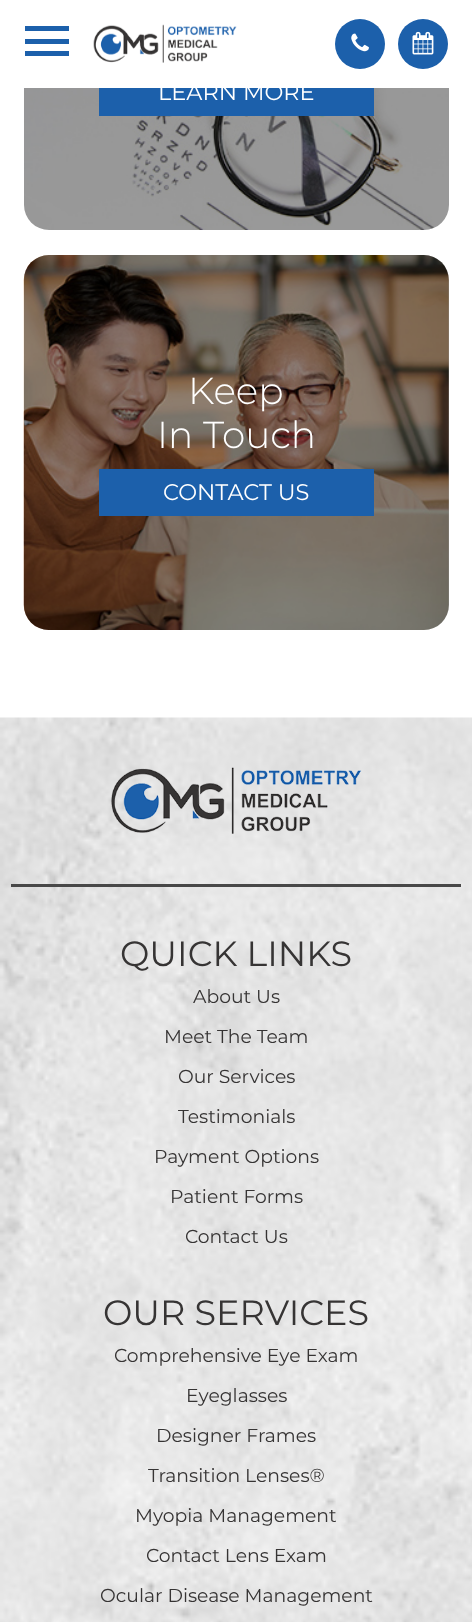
<svg xmlns="http://www.w3.org/2000/svg" width="472" height="1622" viewBox="0 0 472 1622">
  <rect width="100%" height="100%" fill="rgb(255,255,255)"/>
  <image x="23" y="88" width="426" height="142" href="pic4.png"/>
  <rect x="24" y="-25" width="425" height="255" rx="25" fill="rgba(0,0,0,0.4)"/>
  <rect x="24" y="0" width="425" height="88" fill="rgb(255,255,255)"/>
  <rect x="25" y="51" width="44" height="5" fill="rgb(28,96,171)"/>
  <rect x="25" y="26" width="44" height="5" fill="rgb(28,96,171)"/>
  <rect x="25" y="39" width="44" height="5" fill="rgb(28,96,171)"/>
  <image x="93" y="24" width="144" height="39" href="pic1.png"/>
  <circle cx="360" cy="44" r="25" fill="rgb(28,96,171)"/>
  <image x="351" y="33" width="18" height="19" href="pic2.png"/>
  <circle cx="423" cy="44" r="25" fill="rgb(28,96,171)"/>
  <image x="412" y="31" width="22" height="24" href="pic3.png"/>
  <rect x="99" y="88" width="275" height="28" fill="rgb(28,96,171)"/>
  <text x="158" y="100" font-family="Montserrat" font-size="22.5" fill="rgb(255,255,255)">LEARN MORE</text>
  <image x="23" y="255" width="426" height="375" href="pic5.png"/>
  <rect x="24" y="255" width="425" height="375" rx="25" fill="rgba(0,0,0,0.4)"/>
  <g font-family="Montserrat" font-size="37.5" font-weight="300" fill="rgb(255,255,255)">
    <text x="188" y="404">Keep</text>
    <text x="157" y="448">In Touch</text>
  </g>
  <rect x="99" y="469" width="275" height="47" fill="rgb(28,96,171)"/>
  <text x="163" y="500" font-family="Montserrat" font-size="22.5" fill="rgb(255,255,255)">CONTACT US</text>
  <image x="0" y="717" width="472" height="905" href="pic6.png"/>
  <image x="111" y="767" width="251" height="67" href="pic7.png"/>
  <rect x="11" y="884" width="450" height="3" fill="rgb(72,72,72)"/>
  <text x="120" y="966" font-family="Montserrat" font-size="35" fill="rgb(54,52,52)">QUICK LINKS</text>
  <g font-family="Montserrat" font-size="18.75" fill="rgb(54,52,52)">
    <text x="193" y="1003">About Us</text>
    <text x="164" y="1043">Meet The Team</text>
    <text x="178" y="1083">Our Services</text>
    <text x="178" y="1123">Testimonials</text>
    <text x="154" y="1163">Payment Options</text>
    <text x="170" y="1203">Patient Forms</text>
    <text x="185" y="1243">Contact Us</text>
  </g>
  <text x="103" y="1325" font-family="Montserrat" font-size="35" fill="rgb(54,52,52)">OUR SERVICES</text>
  <g font-family="Montserrat" font-size="18.75" fill="rgb(54,52,52)">
    <text x="114" y="1362">Comprehensive Eye Exam</text>
    <text x="186" y="1402">Eyeglasses</text>
    <text x="156" y="1442">Designer Frames</text>
    <text x="148" y="1482">Transition Lenses®</text>
    <text x="135" y="1522">Myopia Management</text>
    <text x="146" y="1562">Contact Lens Exam</text>
    <text x="100" y="1602">Ocular Disease Management</text>
  </g>
</svg>
